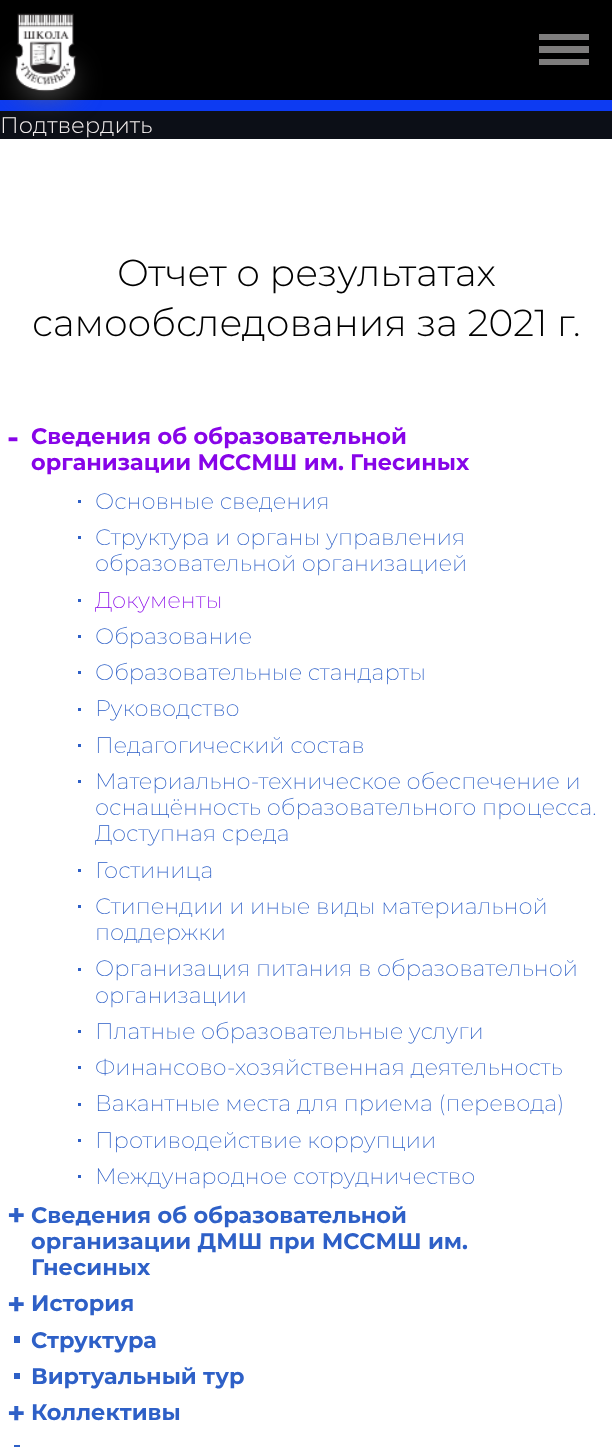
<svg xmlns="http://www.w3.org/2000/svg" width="612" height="1447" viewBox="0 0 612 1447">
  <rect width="100%" height="100%" fill="rgb(255,255,255)"/>
  <rect x="0" y="0" width="612" height="100" fill="rgb(0,0,0)"/>
  <rect x="539" y="34" width="50" height="6" fill="rgb(126,125,125)"/>
  <rect x="539" y="46" width="50" height="7" fill="rgb(126,125,125)"/>
  <rect x="539" y="59" width="50" height="6" fill="rgb(126,125,125)"/>
  <rect x="0" y="100" width="612" height="11" fill="rgb(13,59,242)"/>
  <rect x="0" y="111" width="612" height="28" fill="rgb(12,15,23)"/>
  <rect x="20" y="68" width="53" height="25" rx="25" fill="rgb(107,107,107)" filter="blur(15.5px)"/>
  <image x="15" y="13" width="62" height="79" href="pic1.png"/>
  <text x="0" y="133" font-family="Montserrat" font-size="22.5" font-weight="300" fill="rgb(242,237,237)">Подтвердить</text>
  <g font-family="Montserrat" font-size="37.5" font-weight="300" fill="rgb(0,0,0)">
    <text x="117" y="286">Отчет о результатах</text>
    <text x="32" y="336">самообследования за 2021 г.</text>
  </g>
  <text x="7" y="448" font-family="Montserrat" font-size="31" font-weight="bold" fill="rgb(135,4,232)">-</text>
  <g font-family="Montserrat" font-size="22.4" font-weight="bold" fill="rgb(135,4,232)">
    <text>
      <tspan x="31" y="444">Сведения об образовательной</tspan>
      <tspan x="31" y="470">организации МССМШ им. Гнесиных</tspan>
    </text>
  </g>
  <rect x="78" y="500" width="3" height="3" fill="rgb(46,96,199)"/>
  <text x="95" y="509" font-family="Montserrat" font-size="22.4" font-weight="200" fill="rgb(46,96,199)">Основные сведения</text>
  <rect x="78" y="536" width="3" height="3" fill="rgb(46,96,199)"/>
  <g font-family="Montserrat" font-size="22.4" font-weight="200" fill="rgb(46,96,199)">
    <text>
      <tspan x="95" y="545">Структура и органы управления</tspan>
      <tspan x="95" y="571">образовательной организацией</tspan>
    </text>
  </g>
  <rect x="78" y="599" width="3" height="3" fill="rgb(46,96,199)"/>
  <text x="95" y="608" font-family="Montserrat" font-size="22.4" font-weight="200" fill="rgb(135,4,232)">Документы</text>
  <rect x="78" y="635" width="3" height="3" fill="rgb(46,96,199)"/>
  <text x="95" y="644" font-family="Montserrat" font-size="22.4" font-weight="200" fill="rgb(46,96,199)">Образование</text>
  <rect x="78" y="671" width="3" height="3" fill="rgb(46,96,199)"/>
  <text x="95" y="680" font-family="Montserrat" font-size="22.4" font-weight="200" fill="rgb(46,96,199)">Образовательные стандарты</text>
  <rect x="78" y="708" width="3" height="3" fill="rgb(46,96,199)"/>
  <text x="95" y="716" font-family="Montserrat" font-size="22.4" font-weight="200" fill="rgb(46,96,199)">Руководство</text>
  <rect x="78" y="744" width="3" height="3" fill="rgb(46,96,199)"/>
  <text x="95" y="753" font-family="Montserrat" font-size="22.4" font-weight="200" fill="rgb(46,96,199)">Педагогический состав</text>
  <rect x="78" y="780" width="3" height="3" fill="rgb(46,96,199)"/>
  <g font-family="Montserrat" font-size="22.4" font-weight="200" fill="rgb(46,96,199)">
    <text>
      <tspan x="95" y="789">Материально-техническое обеспечение и</tspan>
      <tspan x="95" y="815">оснащённость образовательного процесса.</tspan>
      <tspan x="95" y="841">Доступная среда</tspan>
    </text>
  </g>
  <rect x="78" y="869" width="3" height="3" fill="rgb(46,96,199)"/>
  <text x="95" y="878" font-family="Montserrat" font-size="22.4" font-weight="200" fill="rgb(46,96,199)">Гостиница</text>
  <rect x="78" y="905" width="3" height="3" fill="rgb(46,96,199)"/>
  <g font-family="Montserrat" font-size="22.4" font-weight="200" fill="rgb(46,96,199)">
    <text>
      <tspan x="95" y="914">Стипендии и иные виды материальной</tspan>
      <tspan x="95" y="940">поддержки</tspan>
    </text>
  </g>
  <rect x="78" y="968" width="3" height="3" fill="rgb(46,96,199)"/>
  <g font-family="Montserrat" font-size="22.4" font-weight="200" fill="rgb(46,96,199)">
    <text>
      <tspan x="95" y="976">Организация питания в образовательной</tspan>
      <tspan x="95" y="1003">организации</tspan>
    </text>
  </g>
  <rect x="78" y="1030" width="3" height="3" fill="rgb(46,96,199)"/>
  <text x="95" y="1039" font-family="Montserrat" font-size="22.4" font-weight="200" fill="rgb(46,96,199)">Платные образовательные услуги</text>
  <rect x="78" y="1066" width="3" height="3" fill="rgb(46,96,199)"/>
  <text x="95" y="1075" font-family="Montserrat" font-size="22.4" font-weight="200" fill="rgb(46,96,199)">Финансово-хозяйственная деятельность</text>
  <rect x="78" y="1103" width="3" height="3" fill="rgb(46,96,199)"/>
  <text x="95" y="1111" font-family="Montserrat" font-size="22.4" font-weight="200" fill="rgb(46,96,199)">Вакантные места для приема (перевода)</text>
  <rect x="78" y="1139" width="3" height="3" fill="rgb(46,96,199)"/>
  <text x="95" y="1148" font-family="Montserrat" font-size="22.4" font-weight="200" fill="rgb(46,96,199)">Противодействие коррупции</text>
  <rect x="78" y="1175" width="3" height="3" fill="rgb(46,96,199)"/>
  <text x="95" y="1184" font-family="Montserrat" font-size="22.4" font-weight="200" fill="rgb(46,96,199)">Международное сотрудничество</text>
  <text x="7" y="1226" font-family="Montserrat" font-size="31" font-weight="bold" fill="rgb(46,96,199)">+</text>
  <g font-family="Montserrat" font-size="22.4" font-weight="bold" fill="rgb(46,96,199)">
    <text>
      <tspan x="31" y="1223">Сведения об образовательной</tspan>
      <tspan x="31" y="1249">организации ДМШ при МССМШ им.</tspan>
      <tspan x="31" y="1275">Гнесиных</tspan>
    </text>
  </g>
  <text x="7" y="1315" font-family="Montserrat" font-size="31" font-weight="bold" fill="rgb(46,96,199)">+</text>
  <text x="31" y="1311" font-family="Montserrat" font-size="22.4" font-weight="bold" fill="rgb(46,96,199)">История</text>
  <rect x="14" y="1336" width="6" height="7" fill="rgb(46,96,199)"/>
  <text x="31" y="1348" font-family="Montserrat" font-size="22.4" font-weight="bold" fill="rgb(46,96,199)">Структура</text>
  <rect x="14" y="1373" width="6" height="6" fill="rgb(46,96,199)"/>
  <text x="31" y="1384" font-family="Montserrat" font-size="22.4" font-weight="bold" fill="rgb(46,96,199)">Виртуальный тур</text>
  <text x="7" y="1424" font-family="Montserrat" font-size="31" font-weight="bold" fill="rgb(46,96,199)">+</text>
  <text x="31" y="1420" font-family="Montserrat" font-size="22.4" font-weight="bold" fill="rgb(46,96,199)">Коллективы</text>
  <rect x="14" y="1445" width="6" height="2" fill="rgb(46,96,199)"/>
</svg>
